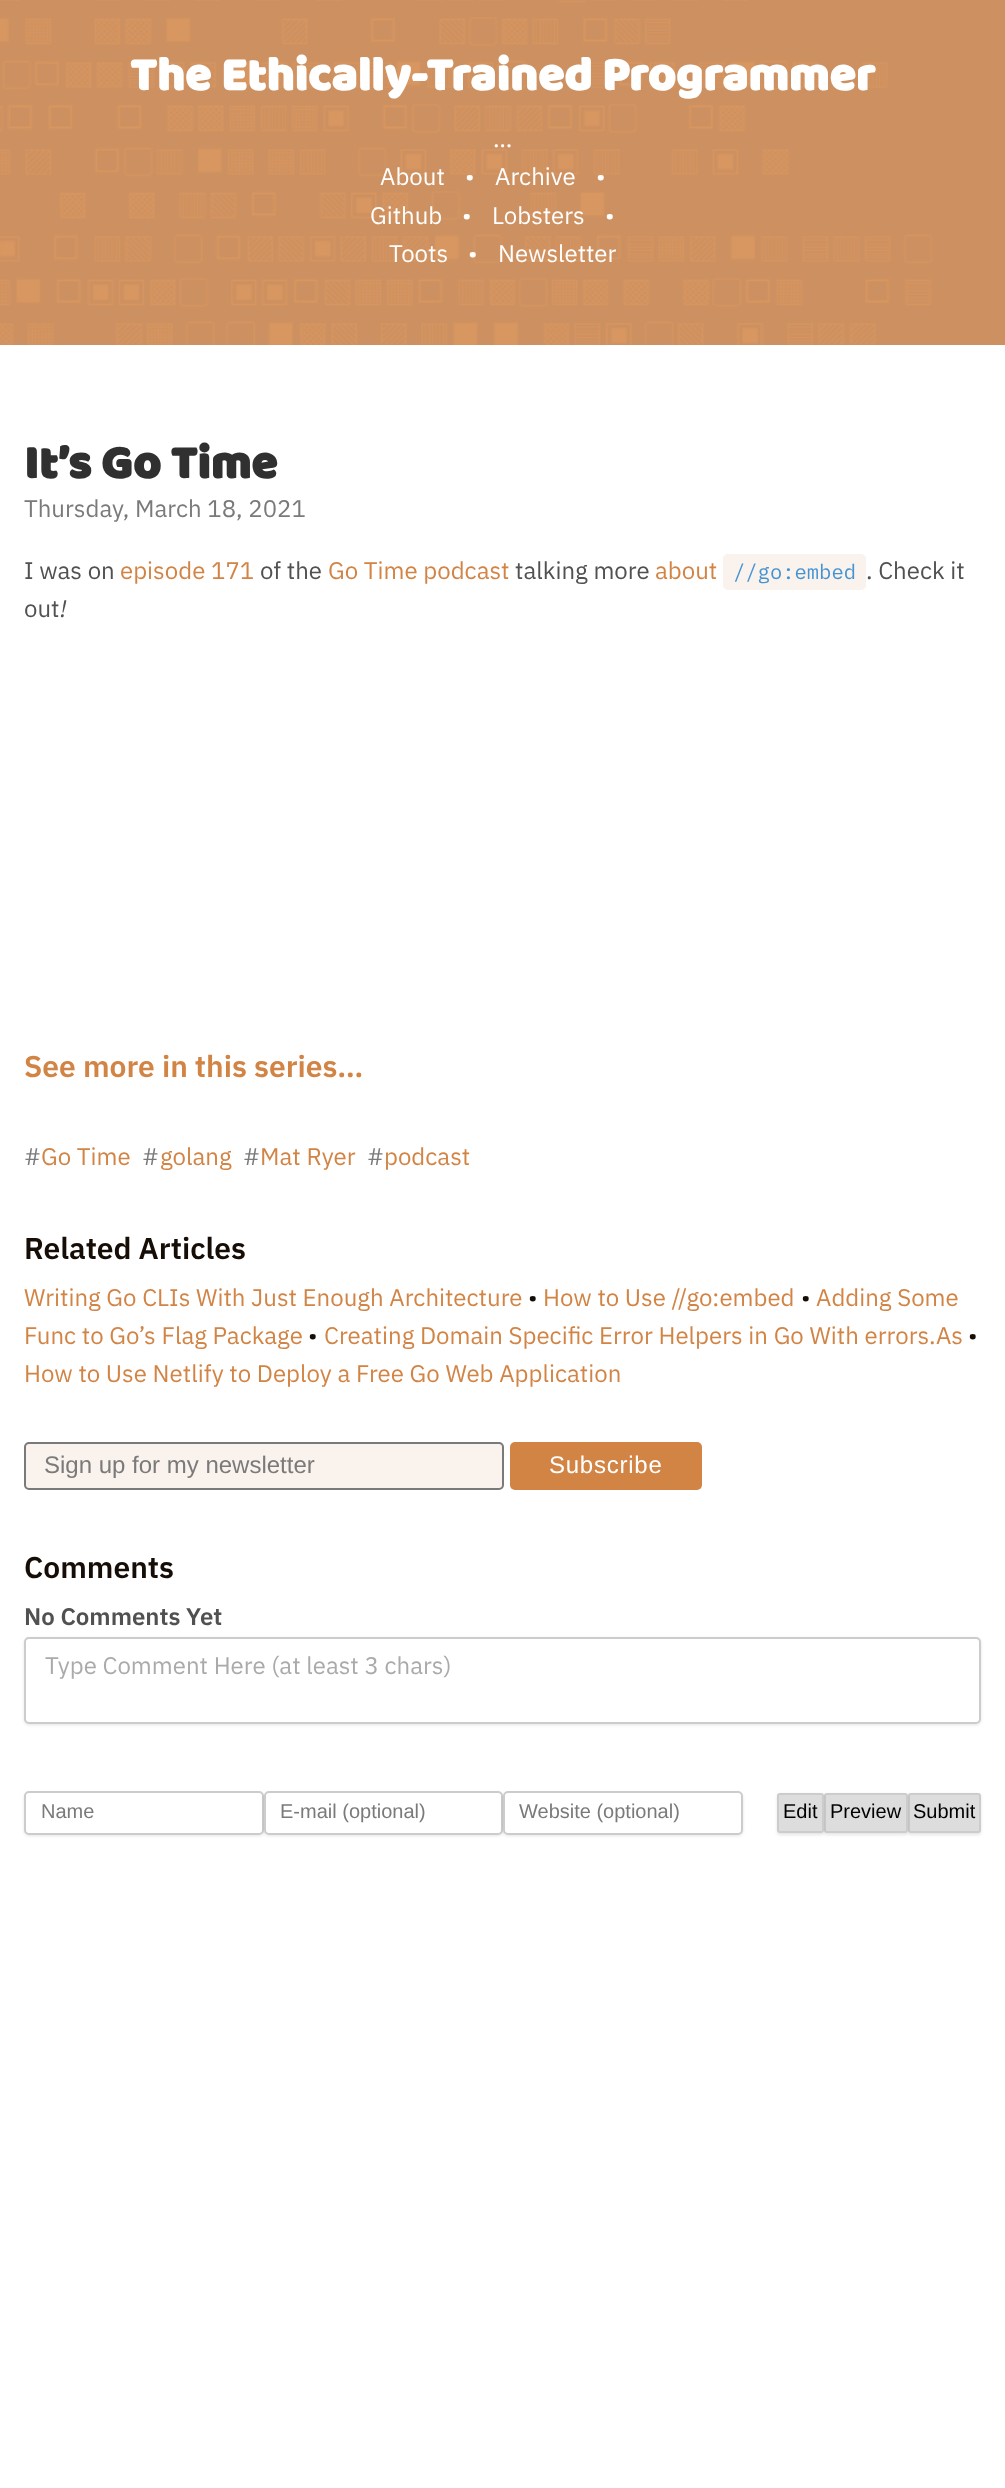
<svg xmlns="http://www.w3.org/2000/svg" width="1005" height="2488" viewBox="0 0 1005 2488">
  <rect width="100%" height="100%" fill="rgb(210,132,69)"/>
  <image x="0" y="0" width="1005" height="345" href="pic1.png"/>
  <text x="130" y="90" font-family="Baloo" font-size="48" font-weight="bold" fill="rgb(255,255,255)">The Ethically-Trained Programmer</text>
  <g font-family="IBM Plex Sans" font-size="24" fill="rgb(255,255,255)">
    <text x="493" y="147">…</text>
    <text x="380" y="185">About</text>
    <text x="465" y="185">•</text>
    <text x="495" y="185">Archive</text>
    <text x="596" y="185">•</text>
    <text x="370" y="224">Github</text>
    <text x="462" y="224">•</text>
    <text x="492" y="224">Lobsters</text>
    <text x="605" y="224">•</text>
    <text x="389" y="262">Toots</text>
    <text x="468" y="262">•</text>
    <text x="498" y="262">Newsletter</text>
  </g>
  <rect x="0" y="345" width="1005" height="2143" fill="rgb(255,255,255)"/>
  <text x="24" y="478" font-family="Baloo" font-size="48" font-weight="bold" fill="rgb(48,48,48)">It’s Go Time</text>
  <text x="24" y="517" font-family="IBM Plex Sans" font-size="24" fill="rgb(122,122,122)">Thursday, March 18, 2021</text>
  <text x="24" y="579" font-family="IBM Plex Sans" font-size="24" fill="rgb(81,81,81)">I was on</text>
  <text x="120" y="579" font-family="IBM Plex Sans" font-size="24" fill="rgb(210,132,69)">episode 171</text>
  <text x="260" y="579" font-family="IBM Plex Sans" font-size="24" fill="rgb(81,81,81)">of the</text>
  <text x="328" y="579" font-family="IBM Plex Sans" font-size="24" fill="rgb(210,132,69)">Go Time podcast</text>
  <text x="515" y="579" font-family="IBM Plex Sans" font-size="24" fill="rgb(81,81,81)">talking more</text>
  <text x="655" y="579" font-family="IBM Plex Sans" font-size="24" fill="rgb(210,132,69)">about</text>
  <rect x="723" y="554" width="143" height="36" rx="5" fill="rgb(250,242,236)"/>
  <text x="733" y="579" font-family="IBM Plex Mono" font-size="20.5" fill="rgb(69,147,210)">//go:embed</text>
  <g font-family="IBM Plex Sans" font-size="24" fill="rgb(81,81,81)">
    <text x="866" y="579">. Check it</text>
    <text x="24" y="617">out</text>
  </g>
  <text x="60" y="617" font-family="IBM Plex Sans" font-size="24" font-style="italic" fill="rgb(81,81,81)">!</text>
  <text x="24" y="1077" font-family="IBM Plex Sans" font-size="30" font-weight="600" fill="rgb(210,132,69)">See more in this series…</text>
  <text x="24" y="1165" font-family="IBM Plex Sans" font-size="24" fill="rgb(122,122,122)">#</text>
  <text x="41" y="1165" font-family="IBM Plex Sans" font-size="24" fill="rgb(210,132,69)">Go Time</text>
  <text x="142" y="1165" font-family="IBM Plex Sans" font-size="24" fill="rgb(122,122,122)">#</text>
  <text x="160" y="1165" font-family="IBM Plex Sans" font-size="24" fill="rgb(210,132,69)">golang</text>
  <text x="243" y="1165" font-family="IBM Plex Sans" font-size="24" fill="rgb(122,122,122)">#</text>
  <text x="260" y="1165" font-family="IBM Plex Sans" font-size="24" fill="rgb(210,132,69)">Mat Ryer</text>
  <text x="367" y="1165" font-family="IBM Plex Sans" font-size="24" fill="rgb(122,122,122)">#</text>
  <text x="384" y="1165" font-family="IBM Plex Sans" font-size="24" fill="rgb(210,132,69)">podcast</text>
  <text x="24" y="1259" font-family="IBM Plex Sans" font-size="30" font-weight="600" fill="rgb(21,13,6)">Related Articles</text>
  <text x="24" y="1306" font-family="IBM Plex Sans" font-size="24" fill="rgb(210,132,69)">Writing Go CLIs With Just Enough Architecture</text>
  <text x="528" y="1306" font-family="IBM Plex Sans" font-size="24" fill="rgb(21,13,6)">•</text>
  <text x="543" y="1306" font-family="IBM Plex Sans" font-size="24" fill="rgb(210,132,69)">How to Use //go:embed</text>
  <text x="801" y="1306" font-family="IBM Plex Sans" font-size="24" fill="rgb(21,13,6)">•</text>
  <g font-family="IBM Plex Sans" font-size="24" fill="rgb(210,132,69)">
    <text x="816" y="1306">Adding Some</text>
    <text x="24" y="1344">Func to Go’s Flag Package</text>
  </g>
  <text x="308" y="1344" font-family="IBM Plex Sans" font-size="24" fill="rgb(21,13,6)">•</text>
  <text x="324" y="1344" font-family="IBM Plex Sans" font-size="24" fill="rgb(210,132,69)">Creating Domain Specific Error Helpers in Go With errors.As</text>
  <text x="968" y="1344" font-family="IBM Plex Sans" font-size="24" fill="rgb(21,13,6)">•</text>
  <text x="24" y="1382" font-family="IBM Plex Sans" font-size="24" fill="rgb(210,132,69)">How to Use Netlify to Deploy a Free Go Web Application</text>
  <rect x="25" y="1443" width="478" height="46" rx="4" fill="rgb(250,242,236)" stroke="rgb(122,122,122)" stroke-width="2"/>
  <text x="44" y="1473" font-family="Liberation Sans" font-size="24" fill="rgb(122,122,122)">Sign up for my newsletter</text>
  <rect x="510" y="1442" width="192" height="48" rx="5" fill="rgb(210,132,69)"/>
  <text x="549" y="1473" font-family="Liberation Sans" font-size="24" letter-spacing="0.75" fill="rgb(255,255,255)">Subscribe</text>
  <text x="24" y="1578" font-family="IBM Plex Sans" font-size="30" font-weight="600" fill="rgb(21,13,6)">Comments</text>
  <text x="24" y="1625" font-family="IBM Plex Sans" font-size="24" font-weight="600" fill="rgb(81,81,81)">No Comments Yet</text>
  <rect x="24" y="1638" width="957" height="87" rx="5" fill="rgba(0,0,0,0.1)" filter="blur(1.5px)"/>
  <rect x="24" y="1637" width="957" height="87" rx="5" fill="rgb(255,255,255)"/>
  <rect x="25" y="1638" width="955" height="85" rx="4" fill="none" stroke="rgba(0,0,0,0.2)" stroke-width="2"/>
  <text x="45" y="1674" font-family="IBM Plex Sans" font-size="24" fill="rgb(170,170,170)">Type Comment Here (at least 3 chars)</text>
  <rect x="24" y="1793" width="240" height="43" rx="5" fill="rgba(0,0,0,0.1)" filter="blur(1.5px)"/>
  <rect x="24" y="1791" width="240" height="44" rx="5" fill="rgb(255,255,255)"/>
  <rect x="25" y="1792" width="238" height="42" rx="4" fill="none" stroke="rgba(0,0,0,0.2)" stroke-width="2"/>
  <text x="41" y="1818" font-family="Liberation Sans" font-size="20" fill="rgb(122,122,122)">Name</text>
  <rect x="264" y="1793" width="239" height="43" rx="5" fill="rgba(0,0,0,0.1)" filter="blur(1.5px)"/>
  <rect x="264" y="1791" width="239" height="44" rx="5" fill="rgb(255,255,255)"/>
  <rect x="265" y="1792" width="237" height="42" rx="4" fill="none" stroke="rgba(0,0,0,0.2)" stroke-width="2"/>
  <text x="280" y="1818" font-family="Liberation Sans" font-size="20" fill="rgb(122,122,122)">E-mail (optional)</text>
  <rect x="503" y="1793" width="240" height="43" rx="5" fill="rgba(0,0,0,0.1)" filter="blur(1.5px)"/>
  <rect x="503" y="1791" width="240" height="44" rx="5" fill="rgb(255,255,255)"/>
  <rect x="504" y="1792" width="238" height="42" rx="4" fill="none" stroke="rgba(0,0,0,0.2)" stroke-width="2"/>
  <text x="519" y="1818" font-family="Liberation Sans" font-size="20" fill="rgb(122,122,122)">Website (optional)</text>
  <rect x="908" y="1794" width="73" height="41" rx="3" fill="rgba(0,0,0,0.1)" filter="blur(1.5px)"/>
  <rect x="909" y="1794" width="71" height="38" rx="2" fill="rgb(221,221,221)" stroke="rgb(204,204,204)" stroke-width="2"/>
  <rect x="824" y="1794" width="84" height="41" rx="3" fill="rgba(0,0,0,0.1)" filter="blur(1.5px)"/>
  <rect x="825" y="1794" width="82" height="38" rx="2" fill="rgb(221,221,221)" stroke="rgb(204,204,204)" stroke-width="2"/>
  <rect x="777" y="1794" width="47" height="41" rx="3" fill="rgba(0,0,0,0.1)" filter="blur(1.5px)"/>
  <rect x="778" y="1794" width="45" height="38" rx="2" fill="rgb(221,221,221)" stroke="rgb(204,204,204)" stroke-width="2"/>
  <g font-family="Liberation Sans" font-size="20" fill="rgb(0,0,0)">
    <text x="783" y="1818">Edit</text>
    <text x="830" y="1818">Preview</text>
    <text x="913" y="1818">Submit</text>
  </g>
</svg>
